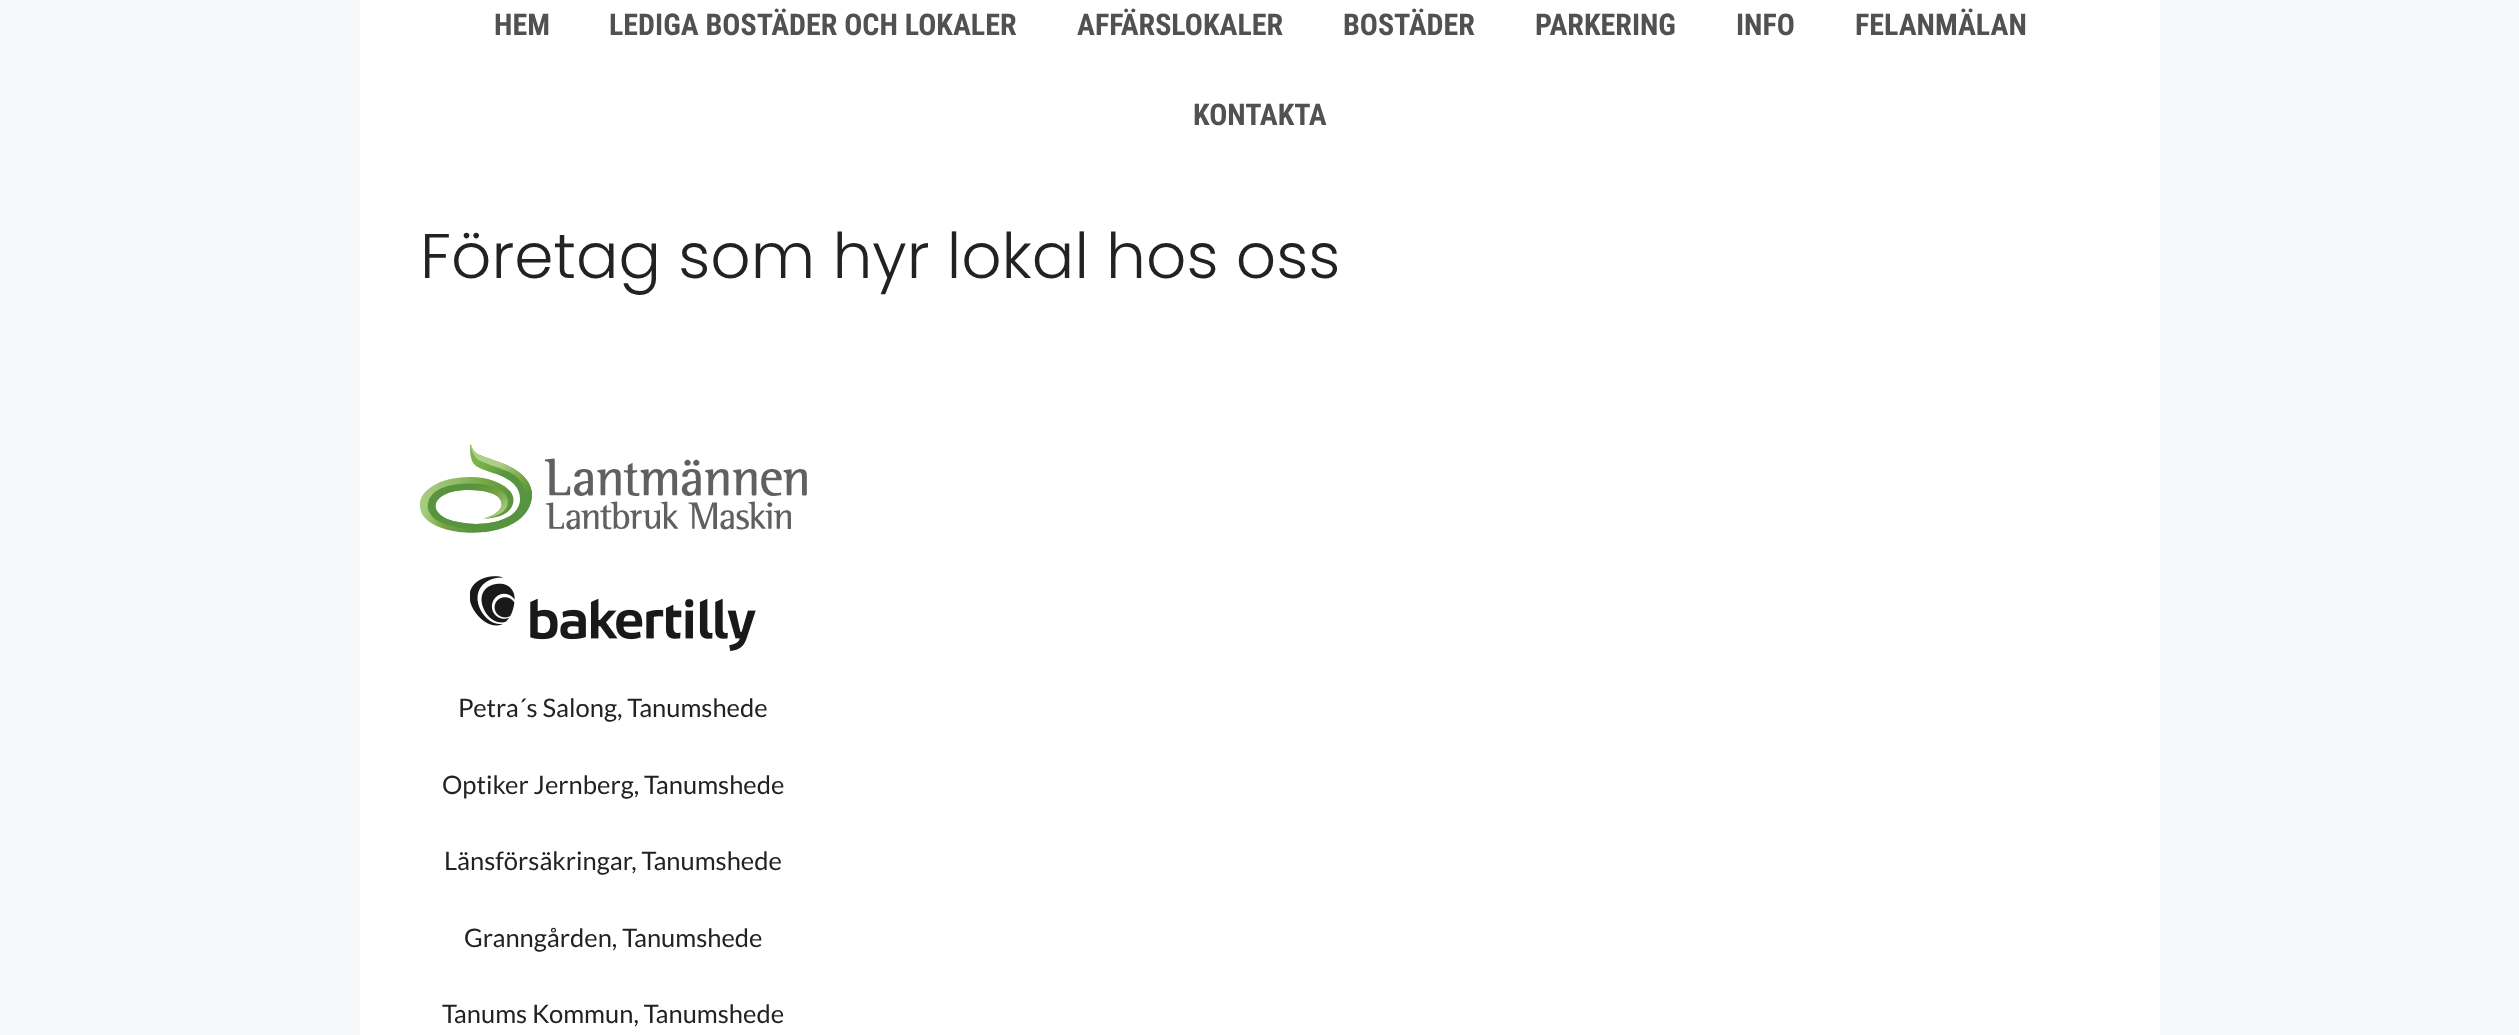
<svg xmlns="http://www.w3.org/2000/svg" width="2519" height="1035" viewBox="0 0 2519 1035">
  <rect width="100%" height="100%" fill="rgb(247,248,249)"/>
  <rect x="360" y="0" width="1800" height="1035" fill="rgb(255,255,255)"/>
  <g font-family="Roboto Condensed" font-size="30" font-weight="bold" fill="rgb(81,81,81)">
    <text x="494" y="35">HEM</text>
    <text x="609" y="35">LEDIGA BOSTÄDER OCH LOKALER</text>
    <text x="1077" y="35">AFFÄRSLOKALER</text>
    <text x="1343" y="35">BOSTÄDER</text>
    <text x="1535" y="35">PARKERING</text>
    <text x="1736" y="35">INFO</text>
    <text x="1855" y="35">FELANMÄLAN</text>
    <text x="1193" y="125">KONTAKTA</text>
  </g>
  <text x="420" y="278" font-family="Poppins" font-size="63" font-weight="300" fill="rgb(34,34,34)">Företag som hyr lokal hos oss</text>
  <image x="420" y="444" width="387" height="89" href="pic1.png"/>
  <image x="470" y="576" width="286" height="75" href="pic2.png"/>
  <g font-family="Lato" font-size="25.5" fill="rgb(34,34,34)">
    <text x="458" y="717">Petra´s Salong, Tanumshede</text>
    <text x="442" y="794">Optiker Jernberg, Tanumshede</text>
    <text x="444" y="870">Länsförsäkringar, Tanumshede</text>
    <text x="464" y="947">Granngården, Tanumshede</text>
    <text x="442" y="1023">Tanums Kommun, Tanumshede</text>
  </g>
</svg>
